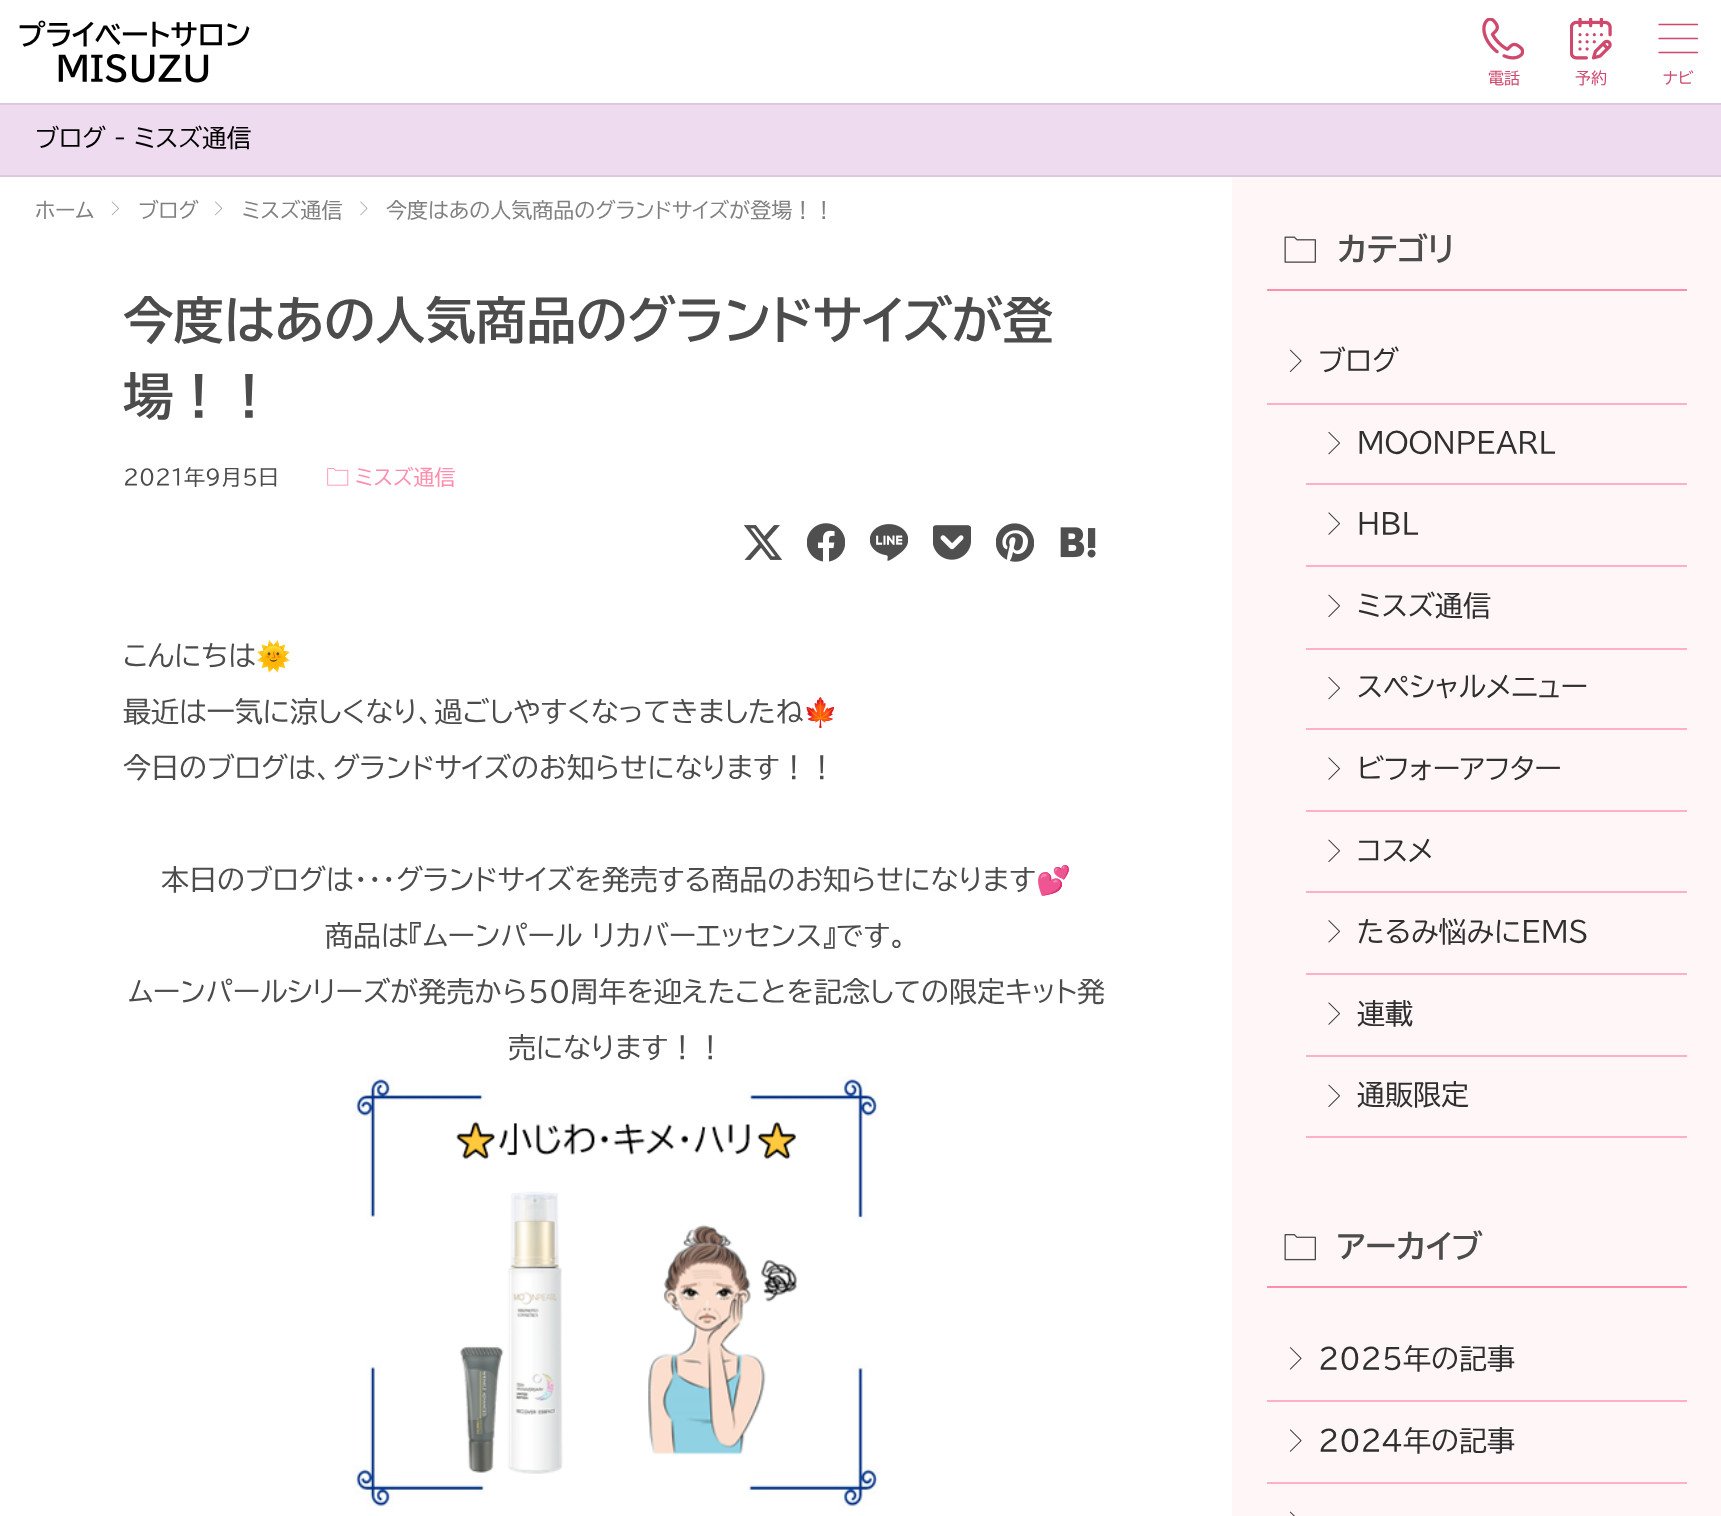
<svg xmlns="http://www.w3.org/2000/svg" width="1721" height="1516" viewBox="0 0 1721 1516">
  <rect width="100%" height="100%" fill="rgb(255,255,255)"/>
  <text x="18" y="45" font-family="BIZ UDPGothic" font-size="28" font-weight="bold" fill="rgb(0,0,0)">プライベートサロン</text>
  <text x="56" y="81" font-family="BIZ UDPGothic" font-size="33.5" font-weight="bold" fill="rgb(0,0,0)">MISUZU</text>
  <rect x="0" y="103" width="1721" height="2" fill="rgb(219,201,219)"/>
  <image x="1482" y="18" width="42" height="42" href="pic1.png"/>
  <text x="1488" y="84" font-family="BIZ UDPGothic" font-size="16" fill="rgb(206,73,109)">電話</text>
  <image x="1570" y="18" width="42" height="42" href="pic2.png"/>
  <text x="1575" y="84" font-family="BIZ UDPGothic" font-size="16" fill="rgb(206,73,109)">予約</text>
  <image x="1658" y="23" width="41" height="31" href="pic3.png"/>
  <text x="1663" y="84" font-family="BIZ UDPGothic" font-size="16" fill="rgb(206,73,109)">ナビ</text>
  <rect x="0" y="105" width="1721" height="70" fill="rgb(238,219,239)"/>
  <rect x="0" y="175" width="1721" height="2" fill="rgb(219,201,219)"/>
  <text x="35" y="147" font-family="BIZ UDPGothic" font-size="24.5" fill="rgb(0,0,0)">ブログ - ミスズ通信</text>
  <text x="35" y="218" font-family="BIZ UDPGothic" font-size="21" fill="rgb(128,128,128)">ホーム</text>
  <image x="111" y="201" width="8" height="15" href="pic4.png"/>
  <text x="138" y="218" font-family="BIZ UDPGothic" font-size="21" fill="rgb(128,128,128)">ブログ</text>
  <image x="215" y="201" width="8" height="15" href="pic5.png"/>
  <text x="242" y="218" font-family="BIZ UDPGothic" font-size="21" fill="rgb(128,128,128)">ミスズ通信</text>
  <image x="360" y="201" width="8" height="15" href="pic6.png"/>
  <text x="386" y="218" font-family="BIZ UDPGothic" font-size="21" fill="rgb(128,128,128)">今度はあの人気商品のグランドサイズが登場！！</text>
  <g font-family="BIZ UDPGothic" font-size="50.4" font-weight="bold" fill="rgb(76,76,76)">
    <text>
      <tspan x="123" y="339">今度はあの人気商品のグランドサイズが登</tspan>
      <tspan x="123" y="415">場！！</tspan>
    </text>
  </g>
  <text x="123" y="485" font-family="BIZ UDPGothic" font-size="21" fill="rgb(76,76,76)">2021年9月5日</text>
  <image x="327" y="468" width="22" height="18" href="pic7.png"/>
  <text x="355" y="485" font-family="BIZ UDPGothic" font-size="21" fill="rgb(255,141,172)">ミスズ通信</text>
  <image x="744" y="525" width="38" height="35" href="pic8.png"/>
  <image x="807" y="523" width="38" height="39" href="pic9.png"/>
  <image x="870" y="524" width="38" height="37" href="pic10.png"/>
  <image x="933" y="525" width="38" height="35" href="pic11.png"/>
  <image x="996" y="523" width="38" height="39" href="pic12.png"/>
  <image x="1060" y="527" width="36" height="31" href="pic13.png"/>
  <text x="123" y="666" font-family="BIZ UDPGothic" font-size="28" fill="rgb(76,76,76)">こんにちは</text>
  <text x="256" y="666" font-family="Noto Color Emoji" font-size="28" fill="rgb(76,76,76)">🌞</text>
  <text x="123" y="722" font-family="BIZ UDPGothic" font-size="28" fill="rgb(76,76,76)">最近は一気に涼しくなり、過ごしやすくなってきましたね</text>
  <text x="803" y="722" font-family="Noto Color Emoji" font-size="28" fill="rgb(76,76,76)">🍁</text>
  <g font-family="BIZ UDPGothic" font-size="28" fill="rgb(76,76,76)">
    <text x="123" y="778">今日のブログは、グランドサイズのお知らせになります！！</text>
    <text x="161" y="890">本日のブログは・・・グランドサイズを発売する商品のお知らせになります</text>
  </g>
  <text x="1036" y="890" font-family="Noto Color Emoji" font-size="28" fill="rgb(76,76,76)">💕</text>
  <g font-family="BIZ UDPGothic" font-size="28" fill="rgb(76,76,76)">
    <text x="325" y="946">商品は『ムーンパール リカバーエッセンス』です。</text>
    <text x="128" y="1002">ムーンパールシリーズが発売から50周年を迎えたことを記念しての限定キット発</text>
    <text x="508" y="1058">売になります！！</text>
  </g>
  <image x="353" y="1076" width="526" height="431" href="pic14.png"/>
  <rect x="1232" y="177" width="489" height="1339" fill="rgb(255,246,248)"/>
  <rect x="1267" y="289" width="420" height="2" fill="rgb(255,141,172)"/>
  <image x="1284" y="236" width="32" height="27" href="pic15.png"/>
  <text x="1337" y="261" font-family="BIZ UDPGothic" font-size="31.5" font-weight="bold" fill="rgb(76,76,76)">カテゴリ</text>
  <rect x="1267" y="403" width="420" height="2" fill="rgb(255,176,198)"/>
  <image x="1289" y="349" width="13" height="23" href="pic16.png"/>
  <text x="1318" y="371" font-family="BIZ UDPGothic" font-size="28" fill="rgb(47,47,47)">ブログ</text>
  <rect x="1306" y="483" width="381" height="2" fill="rgb(255,176,198)"/>
  <image x="1328" y="431" width="12" height="24" href="pic17.png"/>
  <text x="1357" y="453" font-family="BIZ UDPGothic" font-size="28" fill="rgb(47,47,47)">MOONPEARL</text>
  <rect x="1306" y="565" width="381" height="2" fill="rgb(255,176,198)"/>
  <image x="1328" y="512" width="12" height="23" href="pic18.png"/>
  <text x="1357" y="534" font-family="BIZ UDPGothic" font-size="28" fill="rgb(47,47,47)">HBL</text>
  <rect x="1306" y="648" width="381" height="2" fill="rgb(255,176,198)"/>
  <image x="1328" y="594" width="12" height="23" href="pic19.png"/>
  <text x="1357" y="616" font-family="BIZ UDPGothic" font-size="28" fill="rgb(47,47,47)">ミスズ通信</text>
  <rect x="1306" y="728" width="381" height="2" fill="rgb(255,176,198)"/>
  <image x="1328" y="676" width="12" height="24" href="pic17.png"/>
  <text x="1357" y="697" font-family="BIZ UDPGothic" font-size="28" fill="rgb(47,47,47)">スペシャルメニュー</text>
  <rect x="1306" y="810" width="381" height="2" fill="rgb(255,176,198)"/>
  <image x="1328" y="757" width="12" height="23" href="pic18.png"/>
  <text x="1357" y="779" font-family="BIZ UDPGothic" font-size="28" fill="rgb(47,47,47)">ビフォーアフター</text>
  <rect x="1306" y="891" width="381" height="2" fill="rgb(255,176,198)"/>
  <image x="1328" y="839" width="12" height="23" href="pic19.png"/>
  <text x="1357" y="861" font-family="BIZ UDPGothic" font-size="28" fill="rgb(47,47,47)">コスメ</text>
  <rect x="1306" y="973" width="381" height="2" fill="rgb(255,176,198)"/>
  <image x="1328" y="920" width="12" height="23" href="pic20.png"/>
  <text x="1357" y="942" font-family="BIZ UDPGothic" font-size="28" fill="rgb(47,47,47)">たるみ悩みにEMS</text>
  <rect x="1306" y="1055" width="381" height="2" fill="rgb(255,176,198)"/>
  <image x="1328" y="1002" width="12" height="23" href="pic18.png"/>
  <text x="1357" y="1024" font-family="BIZ UDPGothic" font-size="28" fill="rgb(47,47,47)">連載</text>
  <rect x="1306" y="1136" width="381" height="2" fill="rgb(255,176,198)"/>
  <image x="1328" y="1084" width="12" height="23" href="pic19.png"/>
  <text x="1357" y="1105" font-family="BIZ UDPGothic" font-size="28" fill="rgb(47,47,47)">通販限定</text>
  <rect x="1267" y="1286" width="420" height="2" fill="rgb(255,141,172)"/>
  <image x="1284" y="1234" width="32" height="27" href="pic21.png"/>
  <text x="1337" y="1258" font-family="BIZ UDPGothic" font-size="31.5" font-weight="bold" fill="rgb(76,76,76)">アーカイブ</text>
  <rect x="1267" y="1400" width="420" height="2" fill="rgb(255,176,198)"/>
  <image x="1289" y="1347" width="13" height="23" href="pic22.png"/>
  <text x="1318" y="1369" font-family="BIZ UDPGothic" font-size="28" fill="rgb(47,47,47)">2025年の記事</text>
  <rect x="1267" y="1482" width="420" height="2" fill="rgb(255,176,198)"/>
  <image x="1289" y="1429" width="13" height="23" href="pic23.png"/>
  <text x="1318" y="1451" font-family="BIZ UDPGothic" font-size="28" fill="rgb(47,47,47)">2024年の記事</text>
  <image x="1289" y="1511" width="6" height="5" href="pic24.png"/>
</svg>
